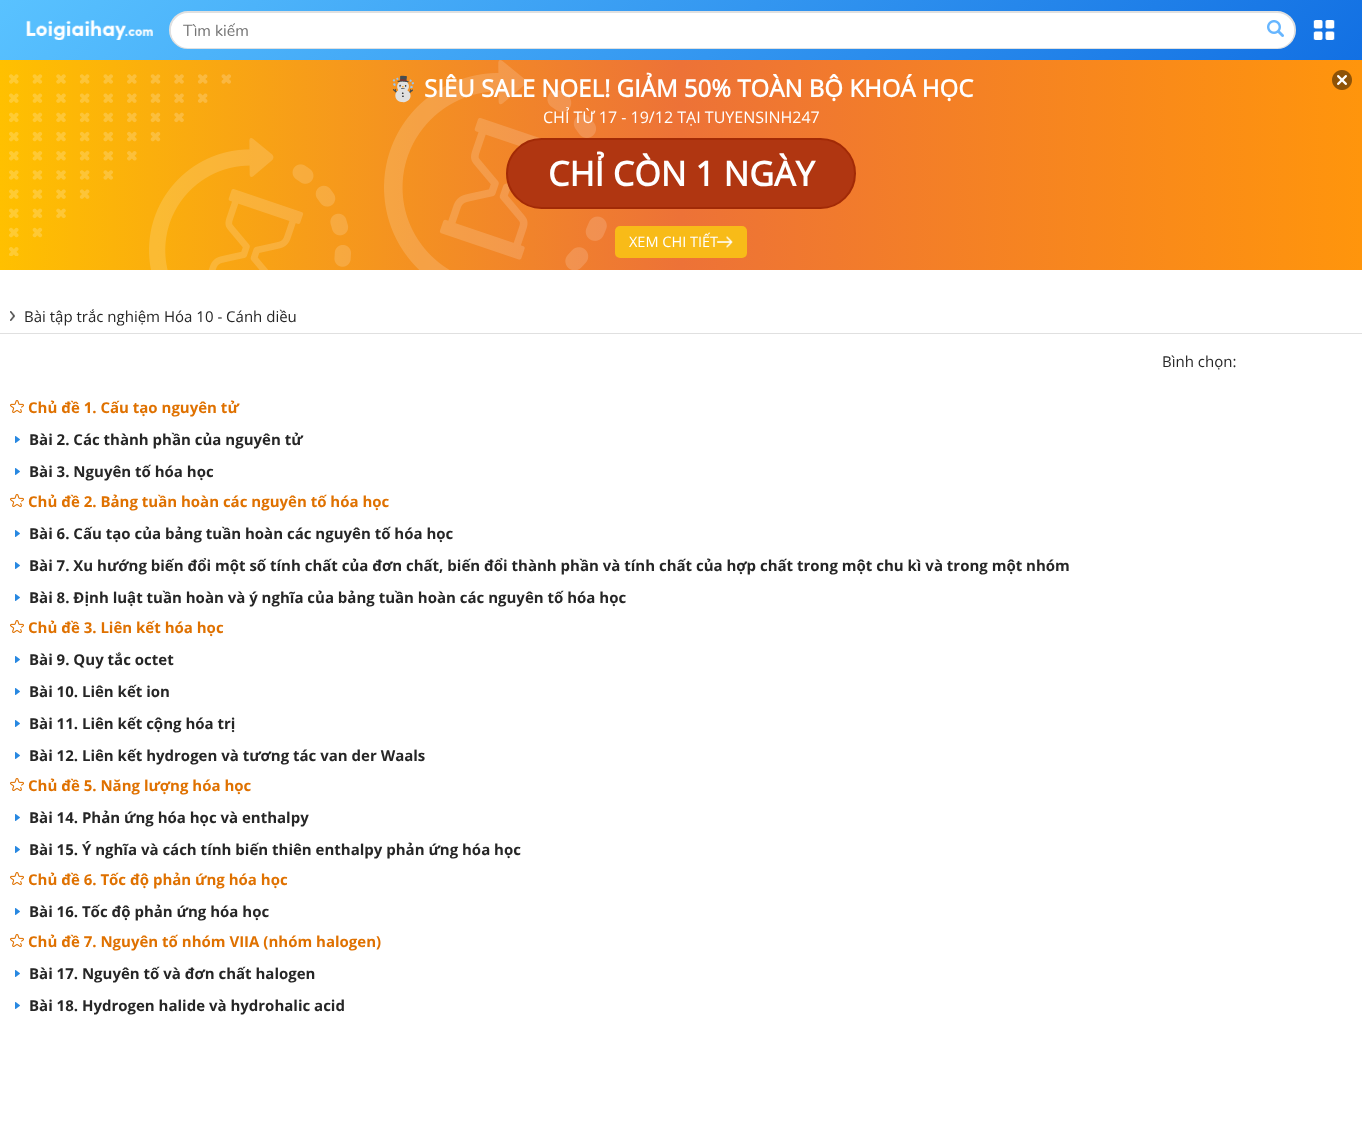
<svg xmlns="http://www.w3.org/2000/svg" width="1362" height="1139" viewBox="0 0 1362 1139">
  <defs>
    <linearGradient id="g1" gradientUnits="userSpaceOnUse" x1="1037" y1="385" x2="325" y2="-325"><stop offset="0" stop-color="rgb(18,112,227)"/><stop offset="1" stop-color="rgb(89,194,255)"/></linearGradient>
    <linearGradient id="g2" gradientUnits="userSpaceOnUse" x1="0" y1="165" x2="1362" y2="165"><stop offset="0" stop-color="rgb(255,192,0)"/><stop offset="0.5" stop-color="rgb(237,114,55)"/><stop offset="1" stop-color="rgb(255,149,12)"/></linearGradient>
  </defs>
  <rect width="100%" height="100%" fill="rgb(255,255,255)"/>
  <rect x="0" y="0" width="1362" height="60" fill="url(#g1)"/>
  <image x="26" y="20" width="127" height="20" href="pic1.png"/>
  <rect x="170" y="12" width="1125" height="36" rx="18" fill="rgb(255,255,255)" stroke="rgb(224,224,224)" stroke-width="2"/>
  <rect x="171" y="14" width="1123" height="34" rx="17" fill="rgb(255,255,255)"/>
  <text x="183" y="36" font-family="Nunito" font-size="16" fill="rgb(117,117,117)">Tìm kiếm</text>
  <image x="1267" y="20" width="17" height="17" href="pic2.png"/>
  <image x="1313" y="20" width="22" height="20" href="pic3.png"/>
  <rect x="0" y="60" width="1362" height="210" fill="url(#g2)"/>
  <text x="388" y="97" font-family="Noto Color Emoji" font-size="24" font-weight="bold" fill="rgb(255,255,255)">☃️</text>
  <text x="424" y="97" font-family="'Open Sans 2'" font-size="24" font-weight="bold" fill="rgb(255,255,255)">SIÊU SALE NOEL! GIẢM 50% TOÀN BỘ KHOÁ HỌC</text>
  <text x="543" y="123" font-family="Open Sans" font-size="16" fill="rgb(255,255,255)">CHỈ TỪ 17 - 19/12 TẠI TUYENSINH247</text>
  <image x="9" y="60" width="598" height="210" href="pic4.png"/>
  <rect x="507" y="139" width="348" height="69" rx="34.5" fill="rgb(176,54,17)" stroke="rgb(162,42,6)" stroke-width="2"/>
  <text x="548" y="186" font-family="'Open Sans 2'" font-size="34" font-weight="bold" fill="rgb(255,255,255)">CHỈ CÒN 1 NGÀY</text>
  <rect x="615" y="226" width="132" height="32" rx="5" fill="rgb(248,187,24)"/>
  <text x="629" y="247" font-family="Open Sans" font-size="14.5" fill="rgb(255,255,255)">XEM CHI TIẾT</text>
  <image x="716" y="236" width="17" height="12" href="pic5.png"/>
  <image x="1332" y="70" width="20" height="20" href="pic6.png"/>
  <rect x="0" y="333" width="1362" height="1" fill="rgb(224,224,224)"/>
  <image x="10" y="311" width="5" height="10" href="pic7.png"/>
  <g font-family="Open Sans" font-size="15" fill="rgb(38,38,38)">
    <text x="24" y="322">Bài tập trắc nghiệm Hóa 10 - Cánh diều</text>
    <text x="1162" y="367">Bình chọn:</text>
  </g>
  <image x="10" y="400" width="14" height="13" href="pic8.png"/>
  <text x="28" y="413" font-family="Open Sans" font-size="15" font-weight="bold" fill="rgb(223,113,0)">Chủ đề 1. Cấu tạo nguyên tử</text>
  <image x="15" y="436" width="5" height="7" href="pic9.png"/>
  <text x="29" y="445" font-family="Open Sans" font-size="15" font-weight="bold" fill="rgb(38,38,38)">Bài 2. Các thành phần của nguyên tử</text>
  <image x="15" y="468" width="5" height="7" href="pic9.png"/>
  <text x="29" y="477" font-family="Open Sans" font-size="15" font-weight="bold" fill="rgb(38,38,38)">Bài 3. Nguyên tố hóa học</text>
  <image x="10" y="494" width="14" height="13" href="pic8.png"/>
  <text x="28" y="507" font-family="Open Sans" font-size="15" font-weight="bold" fill="rgb(223,113,0)">Chủ đề 2. Bảng tuần hoàn các nguyên tố hóa học</text>
  <image x="15" y="530" width="5" height="7" href="pic9.png"/>
  <text x="29" y="539" font-family="Open Sans" font-size="15" font-weight="bold" fill="rgb(38,38,38)">Bài 6. Cấu tạo của bảng tuần hoàn các nguyên tố hóa học</text>
  <image x="15" y="562" width="5" height="7" href="pic9.png"/>
  <text x="29" y="571" font-family="Open Sans" font-size="15" font-weight="bold" fill="rgb(38,38,38)">Bài 7. Xu hướng biến đổi một số tính chất của đơn chất, biến đổi thành phần và tính chất của hợp chất trong một chu kì và trong một nhóm</text>
  <image x="15" y="594" width="5" height="7" href="pic9.png"/>
  <text x="29" y="603" font-family="Open Sans" font-size="15" font-weight="bold" fill="rgb(38,38,38)">Bài 8. Định luật tuần hoàn và ý nghĩa của bảng tuần hoàn các nguyên tố hóa học</text>
  <image x="10" y="620" width="14" height="13" href="pic8.png"/>
  <text x="28" y="633" font-family="Open Sans" font-size="15" font-weight="bold" fill="rgb(223,113,0)">Chủ đề 3. Liên kết hóa học</text>
  <image x="15" y="656" width="5" height="7" href="pic9.png"/>
  <text x="29" y="665" font-family="Open Sans" font-size="15" font-weight="bold" fill="rgb(38,38,38)">Bài 9. Quy tắc octet</text>
  <image x="15" y="688" width="5" height="7" href="pic9.png"/>
  <text x="29" y="697" font-family="Open Sans" font-size="15" font-weight="bold" fill="rgb(38,38,38)">Bài 10. Liên kết ion</text>
  <image x="15" y="720" width="5" height="7" href="pic9.png"/>
  <text x="29" y="729" font-family="Open Sans" font-size="15" font-weight="bold" fill="rgb(38,38,38)">Bài 11. Liên kết cộng hóa trị</text>
  <image x="15" y="752" width="5" height="7" href="pic9.png"/>
  <text x="29" y="761" font-family="Open Sans" font-size="15" font-weight="bold" fill="rgb(38,38,38)">Bài 12. Liên kết hydrogen và tương tác van der Waals</text>
  <image x="10" y="778" width="14" height="13" href="pic8.png"/>
  <text x="28" y="791" font-family="Open Sans" font-size="15" font-weight="bold" fill="rgb(223,113,0)">Chủ đề 5. Năng lượng hóa học</text>
  <image x="15" y="814" width="5" height="7" href="pic9.png"/>
  <text x="29" y="823" font-family="Open Sans" font-size="15" font-weight="bold" fill="rgb(38,38,38)">Bài 14. Phản ứng hóa học và enthalpy</text>
  <image x="15" y="846" width="5" height="7" href="pic9.png"/>
  <text x="29" y="855" font-family="Open Sans" font-size="15" font-weight="bold" fill="rgb(38,38,38)">Bài 15. Ý nghĩa và cách tính biến thiên enthalpy phản ứng hóa học</text>
  <image x="10" y="872" width="14" height="13" href="pic8.png"/>
  <text x="28" y="885" font-family="Open Sans" font-size="15" font-weight="bold" fill="rgb(223,113,0)">Chủ đề 6. Tốc độ phản ứng hóa học</text>
  <image x="15" y="908" width="5" height="7" href="pic9.png"/>
  <text x="29" y="917" font-family="Open Sans" font-size="15" font-weight="bold" fill="rgb(38,38,38)">Bài 16. Tốc độ phản ứng hóa học</text>
  <image x="10" y="934" width="14" height="13" href="pic8.png"/>
  <text x="28" y="947" font-family="Open Sans" font-size="15" font-weight="bold" fill="rgb(223,113,0)">Chủ đề 7. Nguyên tố nhóm VIIA (nhóm halogen)</text>
  <image x="15" y="970" width="5" height="7" href="pic9.png"/>
  <text x="29" y="979" font-family="Open Sans" font-size="15" font-weight="bold" fill="rgb(38,38,38)">Bài 17. Nguyên tố và đơn chất halogen</text>
  <image x="15" y="1002" width="5" height="7" href="pic9.png"/>
  <text x="29" y="1011" font-family="Open Sans" font-size="15" font-weight="bold" fill="rgb(38,38,38)">Bài 18. Hydrogen halide và hydrohalic acid</text>
</svg>
